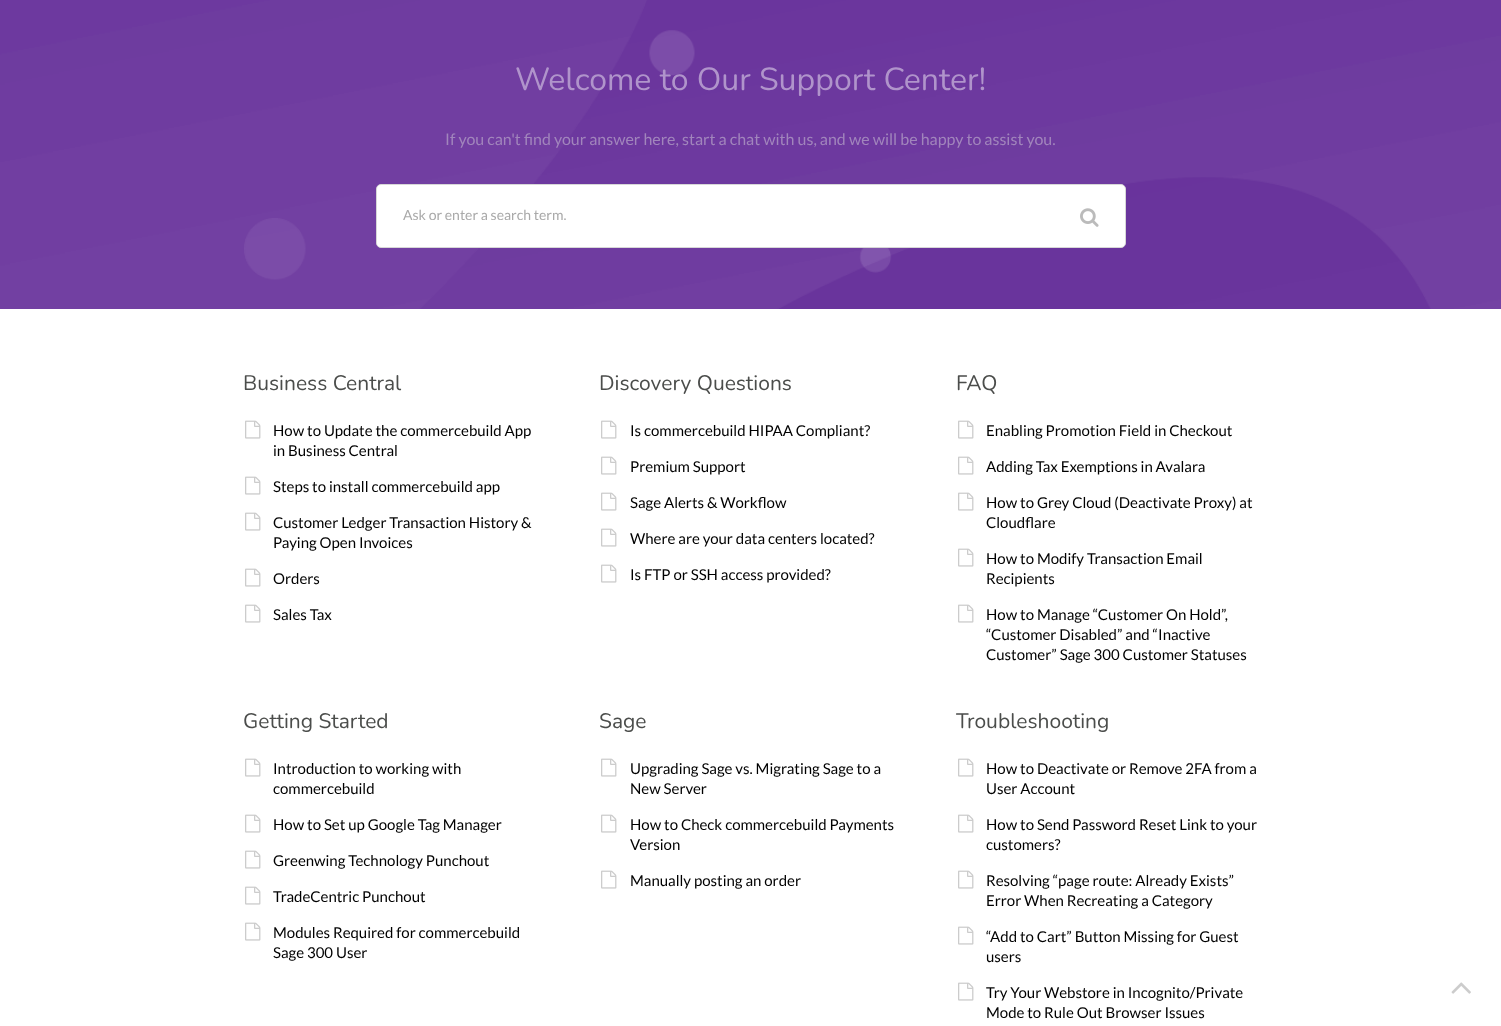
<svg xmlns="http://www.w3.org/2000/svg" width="1501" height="1026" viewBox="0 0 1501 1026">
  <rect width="100%" height="100%" fill="rgb(255,255,255)"/>
  <image x="0" y="0" width="1501" height="309" href="pic1.png"/>
  <text x="515" y="90" font-family="Nunito" font-size="32" fill="rgb(176,148,203)">Welcome to Our Support Center!</text>
  <text x="445" y="145" font-family="Lato" font-size="16" fill="rgb(161,133,188)">If you can't find your answer here, start a chat with us, and we will be happy to assist you.</text>
  <rect x="376.5" y="184.5" width="749" height="63" rx="4.5" fill="rgb(255,255,255)" stroke="rgb(215,215,215)"/>
  <rect x="377.5" y="185.5" width="664" height="61" rx="1.5" fill="none" stroke="rgba(255,255,255,0.2)"/>
  <image x="1080" y="208" width="19" height="19" href="pic2.png"/>
  <text x="403" y="220" font-family="Lato" font-size="14" fill="rgb(169,169,169)">Ask or enter a search term.</text>
  <text x="243" y="390" font-family="Nunito" font-size="21" fill="rgb(75,77,75)">Business Central</text>
  <image x="245" y="420" width="16" height="19" href="pic3.png"/>
  <g font-family="Lato" font-size="15" fill="rgb(0,0,0)">
    <text>
      <tspan x="273" y="436">How to Update the commercebuild App</tspan>
      <tspan x="273" y="456">in Business Central</tspan>
    </text>
  </g>
  <image x="245" y="476" width="16" height="19" href="pic3.png"/>
  <text x="273" y="492" font-family="Lato" font-size="15" fill="rgb(0,0,0)">Steps to install commercebuild app</text>
  <image x="245" y="512" width="16" height="19" href="pic3.png"/>
  <g font-family="Lato" font-size="15" fill="rgb(0,0,0)">
    <text>
      <tspan x="273" y="528">Customer Ledger Transaction History &amp;</tspan>
      <tspan x="273" y="548">Paying Open Invoices</tspan>
    </text>
  </g>
  <image x="245" y="568" width="16" height="19" href="pic3.png"/>
  <text x="273" y="584" font-family="Lato" font-size="15" fill="rgb(0,0,0)">Orders</text>
  <image x="245" y="604" width="16" height="19" href="pic3.png"/>
  <text x="273" y="620" font-family="Lato" font-size="15" fill="rgb(0,0,0)">Sales Tax</text>
  <text x="599" y="390" font-family="Nunito" font-size="21" fill="rgb(75,77,75)">Discovery Questions</text>
  <image x="601" y="420" width="16" height="19" href="pic3.png"/>
  <text x="630" y="436" font-family="Lato" font-size="15" fill="rgb(0,0,0)">Is commercebuild HIPAA Compliant?</text>
  <image x="601" y="456" width="16" height="19" href="pic3.png"/>
  <text x="630" y="472" font-family="Lato" font-size="15" fill="rgb(0,0,0)">Premium Support</text>
  <image x="601" y="492" width="16" height="19" href="pic3.png"/>
  <text x="630" y="508" font-family="Lato" font-size="15" fill="rgb(0,0,0)">Sage Alerts &amp; Workflow</text>
  <image x="601" y="528" width="16" height="19" href="pic3.png"/>
  <text x="630" y="544" font-family="Lato" font-size="15" fill="rgb(0,0,0)">Where are your data centers located?</text>
  <image x="601" y="564" width="16" height="19" href="pic3.png"/>
  <text x="630" y="580" font-family="Lato" font-size="15" fill="rgb(0,0,0)">Is FTP or SSH access provided?</text>
  <text x="956" y="390" font-family="Nunito" font-size="21" fill="rgb(75,77,75)">FAQ</text>
  <image x="958" y="420" width="16" height="19" href="pic3.png"/>
  <text x="986" y="436" font-family="Lato" font-size="15" fill="rgb(0,0,0)">Enabling Promotion Field in Checkout</text>
  <image x="958" y="456" width="16" height="19" href="pic3.png"/>
  <text x="986" y="472" font-family="Lato" font-size="15" fill="rgb(0,0,0)">Adding Tax Exemptions in Avalara</text>
  <image x="958" y="492" width="16" height="19" href="pic3.png"/>
  <g font-family="Lato" font-size="15" fill="rgb(0,0,0)">
    <text>
      <tspan x="986" y="508">How to Grey Cloud (Deactivate Proxy) at</tspan>
      <tspan x="986" y="528">Cloudflare</tspan>
    </text>
  </g>
  <image x="958" y="548" width="16" height="19" href="pic3.png"/>
  <g font-family="Lato" font-size="15" fill="rgb(0,0,0)">
    <text>
      <tspan x="986" y="564">How to Modify Transaction Email</tspan>
      <tspan x="986" y="584">Recipients</tspan>
    </text>
  </g>
  <image x="958" y="604" width="16" height="19" href="pic3.png"/>
  <g font-family="Lato" font-size="15" fill="rgb(0,0,0)">
    <text>
      <tspan x="986" y="620">How to Manage “Customer On Hold”,</tspan>
      <tspan x="986" y="640">“Customer Disabled” and “Inactive</tspan>
      <tspan x="986" y="660">Customer” Sage 300 Customer Statuses</tspan>
    </text>
  </g>
  <text x="243" y="728" font-family="Nunito" font-size="21" fill="rgb(75,77,75)">Getting Started</text>
  <image x="245" y="758" width="16" height="19" href="pic3.png"/>
  <g font-family="Lato" font-size="15" fill="rgb(0,0,0)">
    <text>
      <tspan x="273" y="774">Introduction to working with</tspan>
      <tspan x="273" y="794">commercebuild</tspan>
    </text>
  </g>
  <image x="245" y="814" width="16" height="19" href="pic3.png"/>
  <text x="273" y="830" font-family="Lato" font-size="15" fill="rgb(0,0,0)">How to Set up Google Tag Manager</text>
  <image x="245" y="850" width="16" height="19" href="pic3.png"/>
  <text x="273" y="866" font-family="Lato" font-size="15" fill="rgb(0,0,0)">Greenwing Technology Punchout</text>
  <image x="245" y="886" width="16" height="19" href="pic3.png"/>
  <text x="273" y="902" font-family="Lato" font-size="15" fill="rgb(0,0,0)">TradeCentric Punchout</text>
  <image x="245" y="922" width="16" height="19" href="pic3.png"/>
  <g font-family="Lato" font-size="15" fill="rgb(0,0,0)">
    <text>
      <tspan x="273" y="938">Modules Required for commercebuild</tspan>
      <tspan x="273" y="958">Sage 300 User</tspan>
    </text>
  </g>
  <text x="599" y="728" font-family="Nunito" font-size="21" fill="rgb(75,77,75)">Sage</text>
  <image x="601" y="758" width="16" height="19" href="pic3.png"/>
  <g font-family="Lato" font-size="15" fill="rgb(0,0,0)">
    <text>
      <tspan x="630" y="774">Upgrading Sage vs. Migrating Sage to a</tspan>
      <tspan x="630" y="794">New Server</tspan>
    </text>
  </g>
  <image x="601" y="814" width="16" height="19" href="pic3.png"/>
  <g font-family="Lato" font-size="15" fill="rgb(0,0,0)">
    <text>
      <tspan x="630" y="830">How to Check commercebuild Payments</tspan>
      <tspan x="630" y="850">Version</tspan>
    </text>
  </g>
  <image x="601" y="870" width="16" height="19" href="pic3.png"/>
  <text x="630" y="886" font-family="Lato" font-size="15" fill="rgb(0,0,0)">Manually posting an order</text>
  <text x="956" y="728" font-family="Nunito" font-size="21" fill="rgb(75,77,75)">Troubleshooting</text>
  <image x="958" y="758" width="16" height="19" href="pic3.png"/>
  <g font-family="Lato" font-size="15" fill="rgb(0,0,0)">
    <text>
      <tspan x="986" y="774">How to Deactivate or Remove 2FA from a</tspan>
      <tspan x="986" y="794">User Account</tspan>
    </text>
  </g>
  <image x="958" y="814" width="16" height="19" href="pic3.png"/>
  <g font-family="Lato" font-size="15" fill="rgb(0,0,0)">
    <text>
      <tspan x="986" y="830">How to Send Password Reset Link to your</tspan>
      <tspan x="986" y="850">customers?</tspan>
    </text>
  </g>
  <image x="958" y="870" width="16" height="19" href="pic3.png"/>
  <g font-family="Lato" font-size="15" fill="rgb(0,0,0)">
    <text>
      <tspan x="986" y="886">Resolving “page route: Already Exists”</tspan>
      <tspan x="986" y="906">Error When Recreating a Category</tspan>
    </text>
  </g>
  <image x="958" y="926" width="16" height="19" href="pic3.png"/>
  <g font-family="Lato" font-size="15" fill="rgb(0,0,0)">
    <text>
      <tspan x="986" y="942">“Add to Cart” Button Missing for Guest</tspan>
      <tspan x="986" y="962">users</tspan>
    </text>
  </g>
  <image x="958" y="982" width="16" height="19" href="pic3.png"/>
  <g font-family="Lato" font-size="15" fill="rgb(0,0,0)">
    <text>
      <tspan x="986" y="998">Try Your Webstore in Incognito/Private</tspan>
      <tspan x="986" y="1018">Mode to Rule Out Browser Issues</tspan>
    </text>
  </g>
  <image x="1451" y="982" width="20" height="12" href="pic4.png"/>
</svg>
